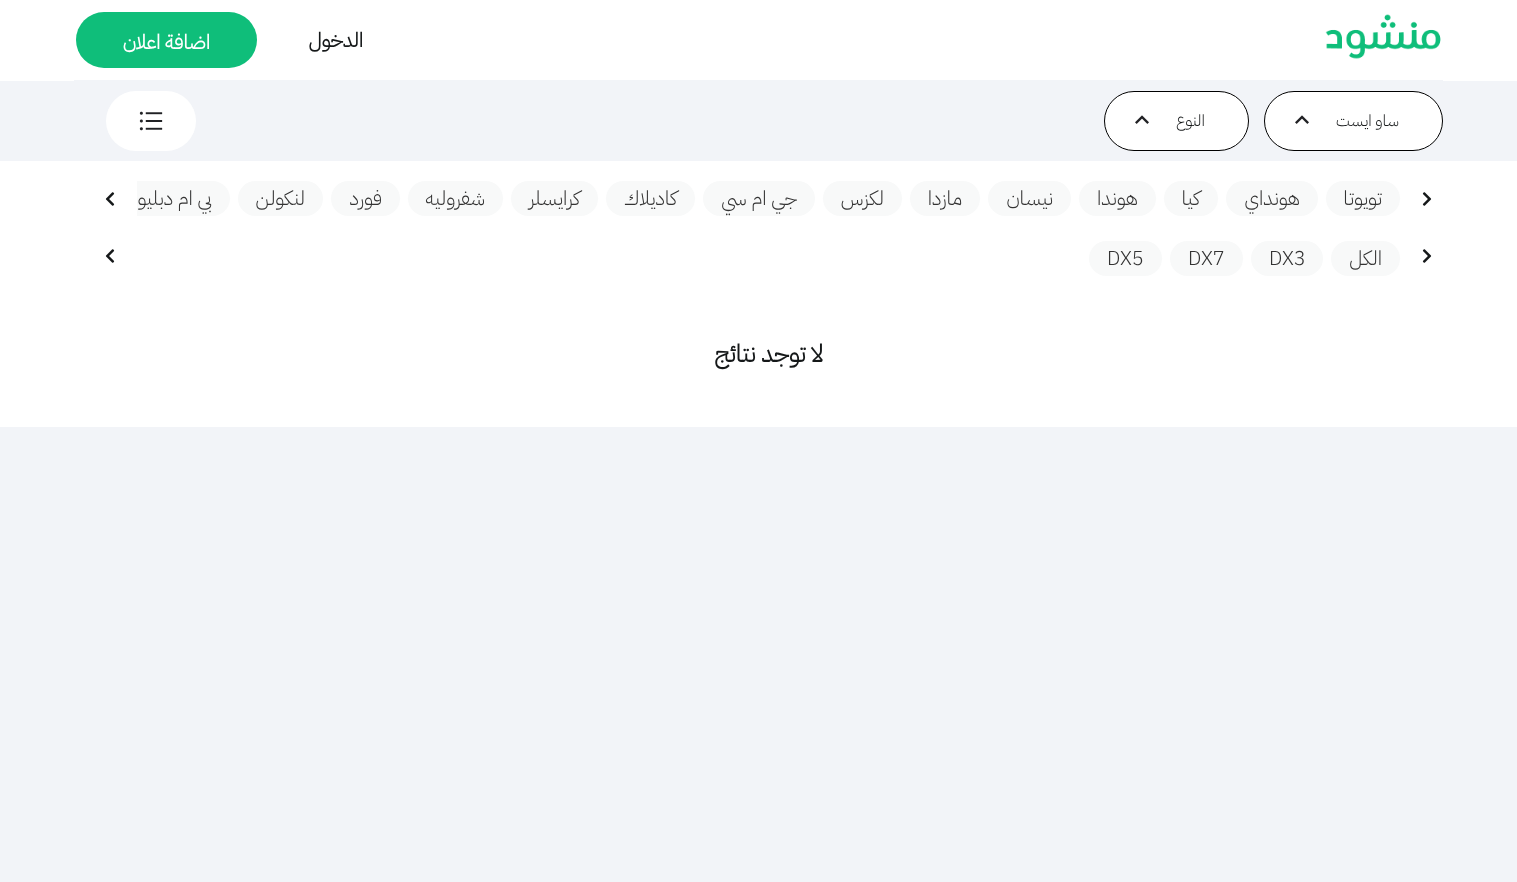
<svg xmlns="http://www.w3.org/2000/svg" width="1517" height="882" viewBox="0 0 1517 882">
  <rect width="100%" height="100%" fill="rgb(242,244,248)"/>
  <rect x="0" y="0" width="1517" height="81" fill="rgb(255,255,255)"/>
  <rect x="74" y="80" width="1369" height="1" fill="rgb(242,244,248)"/>
  <image x="1325" y="14" width="116" height="45" href="pic1.png"/>
  <text x="363" y="47" font-family="IBM Plex Sans Arabic" font-size="20" font-weight="bold" direction="rtl" fill="rgb(21,24,25)">الدخول</text>
  <rect x="76" y="12" width="181" height="56" rx="28" fill="rgb(15,190,122)"/>
  <text x="210" y="49" font-family="IBM Plex Sans Arabic" font-size="20" font-weight="bold" direction="rtl" fill="rgb(255,255,255)">اضافة اعلان</text>
  <rect x="1264.5" y="91.5" width="178" height="59" rx="29.5" fill="rgb(255,255,255)" stroke="rgb(0,0,0)"/>
  <text x="1399" y="126" font-family="IBM Plex Sans Arabic" font-size="16" font-weight="300" direction="rtl" fill="rgb(21,24,25)">ساو ايست</text>
  <image x="1295" y="115" width="14" height="9" href="pic2.png"/>
  <rect x="1104.5" y="91.5" width="144" height="59" rx="29.5" fill="rgb(255,255,255)" stroke="rgb(0,0,0)"/>
  <text x="1205" y="126" font-family="IBM Plex Sans Arabic" font-size="16" font-weight="300" direction="rtl" fill="rgb(21,24,25)">النوع</text>
  <image x="1135" y="115" width="14" height="9" href="pic2.png"/>
  <rect x="106" y="91" width="90" height="60" rx="30" fill="rgb(255,255,255)"/>
  <image x="139" y="111" width="24" height="20" href="pic3.png"/>
  <rect x="0" y="161" width="1517" height="266" fill="rgb(255,255,255)"/>
  <image x="1422" y="192" width="10" height="14" href="pic4.png"/>
  <rect x="1326" y="181" width="74" height="35" rx="17.5" fill="rgb(248,249,249)"/>
  <text x="1382" y="205" font-family="IBM Plex Sans Arabic" font-size="20" font-weight="300" direction="rtl" fill="rgb(51,51,51)">تويوتا</text>
  <rect x="1226" y="181" width="92" height="35" rx="17.5" fill="rgb(248,249,249)"/>
  <text x="1300" y="205" font-family="IBM Plex Sans Arabic" font-size="20" font-weight="300" direction="rtl" fill="rgb(51,51,51)">هونداي</text>
  <rect x="1164" y="181" width="54" height="35" rx="17.5" fill="rgb(248,249,249)"/>
  <text x="1200" y="205" font-family="IBM Plex Sans Arabic" font-size="20" font-weight="300" direction="rtl" fill="rgb(51,51,51)">كيا</text>
  <rect x="1079" y="181" width="77" height="35" rx="17.5" fill="rgb(248,249,249)"/>
  <text x="1138" y="205" font-family="IBM Plex Sans Arabic" font-size="20" font-weight="300" direction="rtl" fill="rgb(51,51,51)">هوندا</text>
  <rect x="988" y="181" width="83" height="35" rx="17.5" fill="rgb(248,249,249)"/>
  <text x="1053" y="205" font-family="IBM Plex Sans Arabic" font-size="20" font-weight="300" direction="rtl" fill="rgb(51,51,51)">نيسان</text>
  <rect x="910" y="181" width="70" height="35" rx="17.5" fill="rgb(248,249,249)"/>
  <text x="962" y="205" font-family="IBM Plex Sans Arabic" font-size="20" font-weight="300" direction="rtl" fill="rgb(51,51,51)">مازدا</text>
  <rect x="823" y="181" width="79" height="35" rx="17.5" fill="rgb(248,249,249)"/>
  <text x="884" y="205" font-family="IBM Plex Sans Arabic" font-size="20" font-weight="300" direction="rtl" fill="rgb(51,51,51)">لكزس</text>
  <rect x="703" y="181" width="112" height="35" rx="17.5" fill="rgb(248,249,249)"/>
  <text x="797" y="205" font-family="IBM Plex Sans Arabic" font-size="20" font-weight="300" direction="rtl" fill="rgb(51,51,51)">جي ام سي</text>
  <rect x="606" y="181" width="89" height="35" rx="17.5" fill="rgb(248,249,249)"/>
  <text x="677" y="205" font-family="IBM Plex Sans Arabic" font-size="20" font-weight="300" direction="rtl" fill="rgb(51,51,51)">كاديلاك</text>
  <rect x="511" y="181" width="87" height="35" rx="17.5" fill="rgb(248,249,249)"/>
  <text x="580" y="205" font-family="IBM Plex Sans Arabic" font-size="20" font-weight="300" direction="rtl" fill="rgb(51,51,51)">كرايسلر</text>
  <rect x="408" y="181" width="95" height="35" rx="17.5" fill="rgb(248,249,249)"/>
  <text x="485" y="205" font-family="IBM Plex Sans Arabic" font-size="20" font-weight="300" direction="rtl" fill="rgb(51,51,51)">شفروليه</text>
  <rect x="331" y="181" width="69" height="35" rx="17.5" fill="rgb(248,249,249)"/>
  <text x="382" y="205" font-family="IBM Plex Sans Arabic" font-size="20" font-weight="300" direction="rtl" fill="rgb(51,51,51)">فورد</text>
  <rect x="238" y="181" width="85" height="35" rx="17.5" fill="rgb(248,249,249)"/>
  <text x="305" y="205" font-family="IBM Plex Sans Arabic" font-size="20" font-weight="300" direction="rtl" fill="rgb(51,51,51)">لنكولن</text>
  <path d="M137 181H212.5C222 181 230 189 230 198.5C230 208 222 216 212.5 216H137Z" fill="rgb(248,249,249)"/>
  <text x="212" y="205" font-family="IBM Plex Sans Arabic" font-size="20" font-weight="300" direction="rtl" fill="rgb(51,51,51)">بي ام دبليو</text>
  <image x="105" y="192" width="10" height="14" href="pic5.png"/>
  <image x="1422" y="249" width="10" height="14" href="pic4.png"/>
  <rect x="1331" y="241" width="69" height="35" rx="17.5" fill="rgb(248,249,249)"/>
  <text x="1382" y="265" font-family="IBM Plex Sans Arabic" font-size="20" font-weight="300" direction="rtl" fill="rgb(51,51,51)">الكل</text>
  <rect x="1251" y="241" width="72" height="35" rx="17.5" fill="rgb(248,249,249)"/>
  <text x="1269" y="265" font-family="IBM Plex Sans Arabic" font-size="20" font-weight="300" fill="rgb(51,51,51)">DX3</text>
  <rect x="1170" y="241" width="73" height="35" rx="17.5" fill="rgb(248,249,249)"/>
  <text x="1188" y="265" font-family="IBM Plex Sans Arabic" font-size="20" font-weight="300" fill="rgb(51,51,51)">DX7</text>
  <rect x="1089" y="241" width="73" height="35" rx="17.5" fill="rgb(248,249,249)"/>
  <text x="1107" y="265" font-family="IBM Plex Sans Arabic" font-size="20" font-weight="300" fill="rgb(51,51,51)">DX5</text>
  <image x="105" y="249" width="10" height="14" href="pic5.png"/>
  <text x="823" y="362" font-family="IBM Plex Sans Arabic" font-size="24" font-weight="bold" direction="rtl" fill="rgb(21,24,25)">لا توجد نتائج</text>
</svg>
